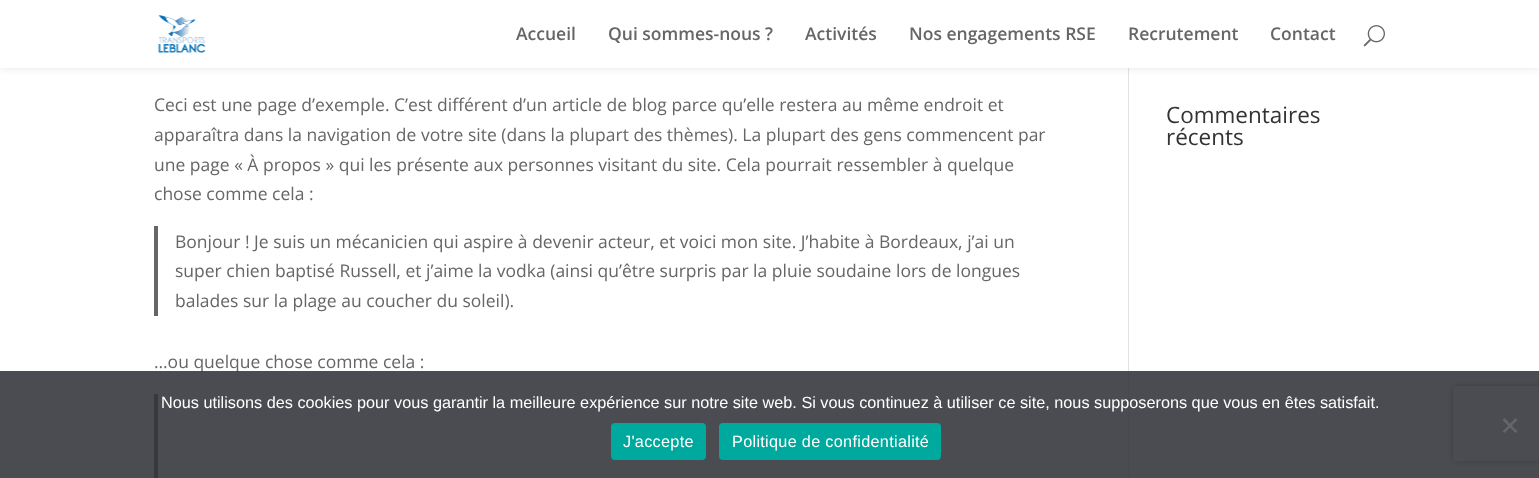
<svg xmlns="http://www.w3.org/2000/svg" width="1539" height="478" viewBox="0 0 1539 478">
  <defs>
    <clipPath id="clip1"><path d="M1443 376H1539V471H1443ZM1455.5 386H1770.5C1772 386 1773 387 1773 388.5V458.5C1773 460 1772 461 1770.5 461H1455.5C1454 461 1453 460 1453 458.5V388.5C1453 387 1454 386 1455.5 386Z" clip-rule="evenodd"/></clipPath>
  </defs>
  <rect width="100%" height="100%" fill="rgb(255,255,255)"/>
  <rect x="1128" y="68" width="1" height="410" fill="rgb(226,226,226)"/>
  <rect x="0" y="0" width="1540" height="68" fill="rgba(0,0,0,0.1)" filter="blur(4.5px)"/>
  <rect x="0" y="0" width="1539" height="68" fill="rgb(255,255,255)"/>
  <image x="158" y="15" width="48" height="38" href="pic1.png"/>
  <g font-family="Open Sans" font-size="17.5" font-weight="600" fill="rgb(102,102,102)">
    <text x="516" y="40">Accueil</text>
    <text x="608" y="40">Qui sommes-nous ?</text>
    <text x="805" y="40">Activités</text>
    <text x="909" y="40">Nos engagements RSE</text>
    <text x="1128" y="40">Recrutement</text>
    <text x="1270" y="40">Contact</text>
  </g>
  <image x="1363" y="25" width="22" height="22" href="pic2.png"/>
  <g font-family="Open Sans" font-size="17.5" fill="rgb(102,102,102)">
    <text>
      <tspan x="154" y="111">Ceci est une page d’exemple. C’est différent d’un article de blog parce qu’elle restera au même endroit et</tspan>
      <tspan x="154" y="141">apparaîtra dans la navigation de votre site (dans la plupart des thèmes). La plupart des gens commencent par</tspan>
      <tspan x="154" y="171">une page « À propos » qui les présente aux personnes visitant du site. Cela pourrait ressembler à quelque</tspan>
      <tspan x="154" y="200">chose comme cela :</tspan>
    </text>
  </g>
  <rect x="154" y="226" width="4" height="90" fill="rgb(102,102,102)"/>
  <g font-family="Open Sans" font-size="17.5" fill="rgb(102,102,102)">
    <text>
      <tspan x="175" y="248">Bonjour ! Je suis un mécanicien qui aspire à devenir acteur, et voici mon site. J’habite à Bordeaux, j’ai un</tspan>
      <tspan x="175" y="277">super chien baptisé Russell, et j’aime la vodka (ainsi qu’être surpris par la pluie soudaine lors de longues</tspan>
      <tspan x="175" y="307">balades sur la plage au coucher du soleil).</tspan>
    </text>
    <text x="154" y="368">…ou quelque chose comme cela :</text>
  </g>
  <rect x="154" y="394" width="4" height="84" fill="rgb(102,102,102)"/>
  <g font-family="Open Sans" font-size="22.5" fill="rgb(51,51,51)">
    <text>
      <tspan x="1166" y="123">Commentaires</tspan>
      <tspan x="1166" y="145">récents</tspan>
    </text>
  </g>
  <g clip-path="url(#clip1)">
    <rect x="1453" y="386" width="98" height="75" rx="2.5" fill="rgb(128,128,128)" filter="blur(3px)"/>
  </g>
  <rect x="0" y="371" width="1539" height="107" fill="rgba(50,50,58,0.88)"/>
  <text x="161" y="408" font-family="Liberation Sans" font-size="16.25" fill="rgb(255,255,255)">Nous utilisons des cookies pour vous garantir la meilleure expérience sur notre site web. Si vous continuez à utiliser ce site, nous supposerons que vous en êtes satisfait.</text>
  <path d="M1515.5 418L1517.5 420L1504.5 433L1502.5 431.5Z" fill="rgb(101,101,105)"/>
  <path d="M1502.5 420L1504.5 418L1517.5 431.5L1515.5 433Z" fill="rgb(101,101,105)"/>
  <rect x="611" y="423" width="95" height="37" rx="4" fill="rgb(0,169,157)"/>
  <text x="623" y="447" font-family="Liberation Sans" font-size="16.25" letter-spacing="0.3" fill="rgb(255,255,255)">J'accepte</text>
  <rect x="719" y="423" width="222" height="37" rx="4" fill="rgb(0,169,157)"/>
  <text x="732" y="447" font-family="Liberation Sans" font-size="16.25" letter-spacing="0.3" fill="rgb(255,255,255)">Politique de confidentialité</text>
</svg>
